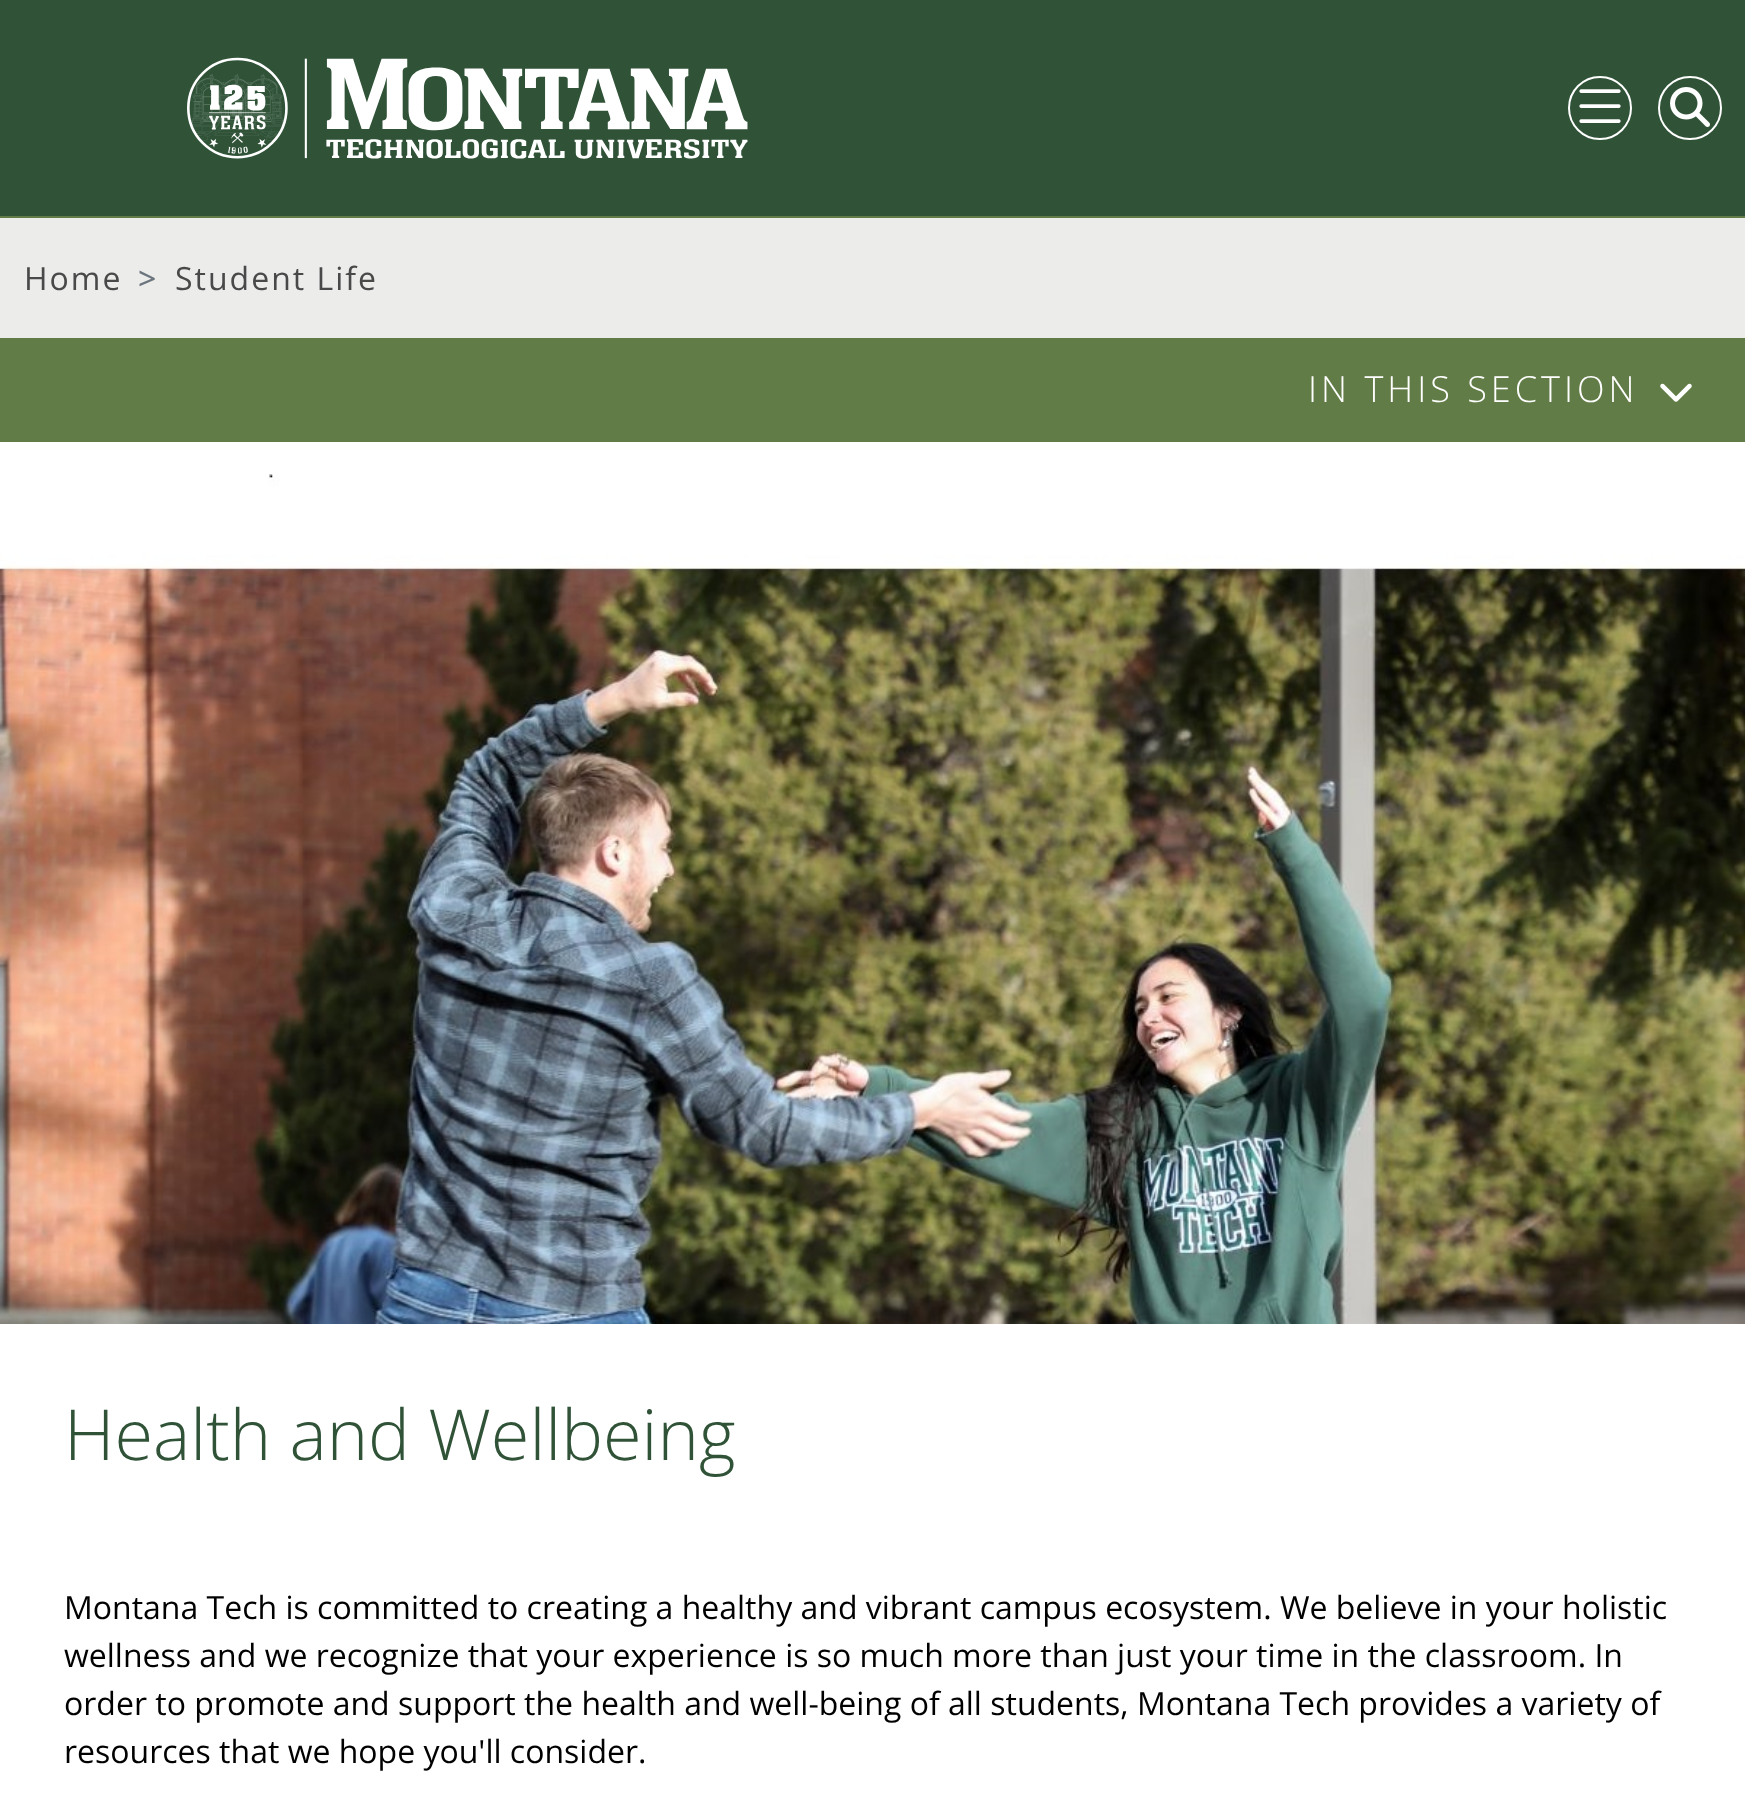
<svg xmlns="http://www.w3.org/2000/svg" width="1745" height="1816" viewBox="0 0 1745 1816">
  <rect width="100%" height="100%" fill="rgb(255,255,255)"/>
  <rect x="0" y="0" width="1745" height="216" fill="rgb(48,83,56)"/>
  <image x="187" y="57" width="561" height="102" href="pic1.png"/>
  <circle cx="1600" cy="108" r="31" fill="none" stroke="rgb(255,255,255)" stroke-width="2"/>
  <image x="1579" y="89" width="42" height="34" href="pic2.png"/>
  <circle cx="1690" cy="108" r="31" fill="none" stroke="rgb(255,255,255)" stroke-width="2"/>
  <image x="1670" y="87" width="40" height="40" href="pic3.png"/>
  <rect x="0" y="218" width="1745" height="120" fill="rgb(236,236,235)"/>
  <rect x="0" y="216" width="1745" height="2" fill="rgb(97,124,70)"/>
  <rect x="0" y="338" width="1745" height="104" fill="rgb(97,124,70)"/>
  <text x="24" y="290" font-family="Open Sans" font-size="32" letter-spacing="2" fill="rgb(73,73,73)">Home</text>
  <text x="138" y="290" font-family="Open Sans" font-size="32" font-weight="500" letter-spacing="2" fill="rgb(108,117,125)">&gt;</text>
  <text x="175" y="290" font-family="Open Sans" font-size="32" letter-spacing="2" fill="rgb(73,73,73)">Student Life</text>
  <text x="1308" y="402" font-family="Open Sans" font-size="36" font-weight="300" letter-spacing="4" fill="rgb(255,255,255)">IN THIS SECTION</text>
  <image x="1660" y="383" width="32" height="19" href="pic4.png"/>
  <image x="0" y="474" width="1745" height="850" href="pic5.png"/>
  <text x="64" y="1460" font-family="Open Sans" font-size="70.25" font-weight="300" fill="rgb(48,83,56)">Health and Wellbeing</text>
  <g font-family="Open Sans" font-size="32" fill="rgb(0,0,0)">
    <text>
      <tspan x="64" y="1619">Montana Tech is committed to creating a healthy and vibrant campus ecosystem. We believe in your holistic</tspan>
      <tspan x="64" y="1667">wellness and we recognize that your experience is so much more than just your time in the classroom. In</tspan>
      <tspan x="64" y="1715">order to promote and support the health and well-being of all students, Montana Tech provides a variety of</tspan>
      <tspan x="64" y="1763">resources that we hope you'll consider.</tspan>
    </text>
  </g>
</svg>
